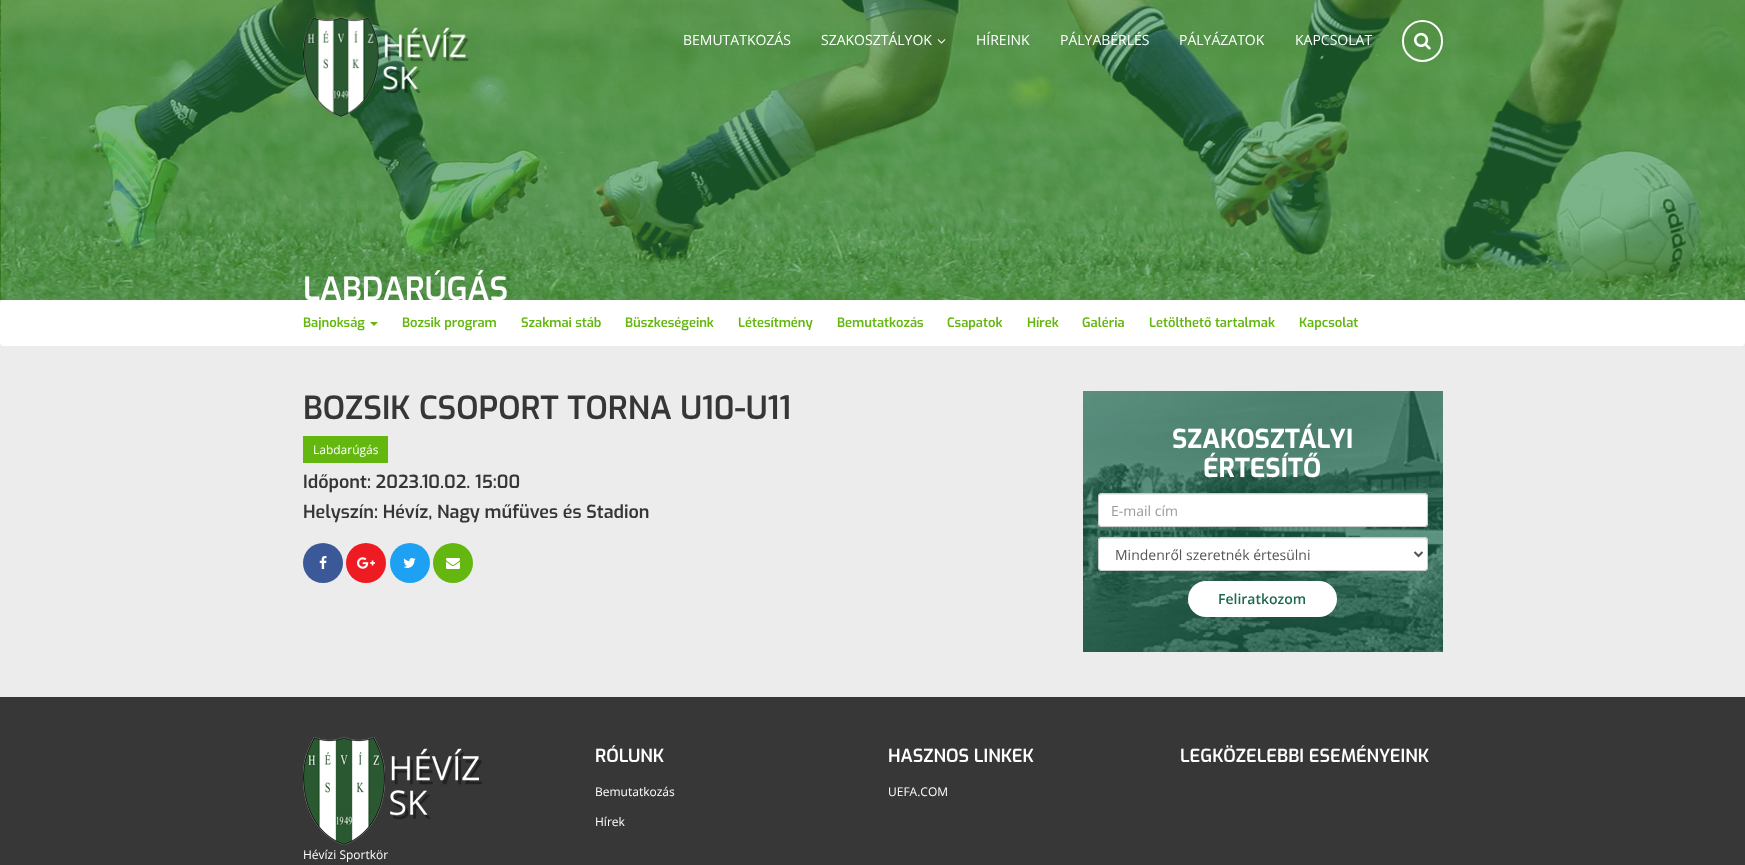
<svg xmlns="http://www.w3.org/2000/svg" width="1745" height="865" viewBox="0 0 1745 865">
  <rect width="100%" height="100%" fill="rgb(236,236,236)"/>
  <image x="0" y="0" width="1745" height="300" href="pic4.png"/>
  <image x="303" y="17" width="166" height="100" href="pic1.png"/>
  <g font-family="Open Sans" font-size="14" fill="rgb(255,255,255)">
    <text x="683" y="45">BEMUTATKOZÁS</text>
    <text x="821" y="45">SZAKOSZTÁLYOK</text>
  </g>
  <image x="937" y="39" width="9" height="5" href="pic2.png"/>
  <g font-family="Open Sans" font-size="14" fill="rgb(255,255,255)">
    <text x="976" y="45">HÍREINK</text>
    <text x="1060" y="45">PÁLYABÉRLÉS</text>
    <text x="1179" y="45">PÁLYÁZATOK</text>
    <text x="1295" y="45">KAPCSOLAT</text>
  </g>
  <rect x="1403" y="21" width="39" height="40" rx="19.5" fill="none" stroke="rgb(255,255,255)" stroke-width="2"/>
  <image x="1414" y="32" width="17" height="18" href="pic3.png"/>
  <rect x="0" y="300" width="1745" height="46" rx="4" fill="rgb(255,255,255)"/>
  <text x="303" y="300" font-family="Exo" font-size="32" font-weight="600" fill="rgb(255,255,255)">LABDARÚGÁS</text>
  <text x="303" y="327" font-family="Exo" font-size="13" font-weight="600" fill="rgb(99,183,15)">Bajnokság</text>
  <path d="M370 322H378L374 326Z" fill="rgb(99,183,15)"/>
  <g font-family="Exo" font-size="13" font-weight="600" fill="rgb(99,183,15)">
    <text x="402" y="327">Bozsik program</text>
    <text x="521" y="327">Szakmai stáb</text>
    <text x="625" y="327">Büszkeségeink</text>
    <text x="738" y="327">Létesítmény</text>
    <text x="837" y="327">Bemutatkozás</text>
    <text x="947" y="327">Csapatok</text>
    <text x="1027" y="327">Hírek</text>
    <text x="1082" y="327">Galéria</text>
    <text x="1149" y="327">Letölthető tartalmak</text>
    <text x="1299" y="327">Kapcsolat</text>
  </g>
  <text x="303" y="419" font-family="Exo" font-size="32" font-weight="600" fill="rgb(54,54,54)">BOZSIK CSOPORT TORNA U10-U11</text>
  <rect x="303" y="436" width="85" height="27" fill="rgb(99,183,15)"/>
  <text x="313" y="454" font-family="Open Sans" font-size="12" fill="rgb(255,255,255)">Labdarúgás</text>
  <g font-family="Exo" font-size="18" font-weight="600" fill="rgb(54,54,54)">
    <text>
      <tspan x="303" y="488">Időpont: 2023.10.02. 15:00</tspan>
      <tspan x="303" y="518">Helyszín: Hévíz, Nagy műfüves és Stadion</tspan>
    </text>
  </g>
  <circle cx="323" cy="563" r="20" fill="rgb(59,89,152)"/>
  <image x="319" y="556" width="8" height="13" href="pic5.png"/>
  <circle cx="366" cy="563" r="20" fill="rgb(238,27,34)"/>
  <image x="357" y="557" width="18" height="12" href="pic6.png"/>
  <circle cx="410" cy="563" r="20" fill="rgb(30,161,243)"/>
  <image x="403" y="558" width="13" height="10" href="pic7.png"/>
  <circle cx="453" cy="563" r="20" fill="rgb(99,183,15)"/>
  <image x="446" y="558" width="14" height="11" href="pic8.png"/>
  <image x="1083" y="391" width="360" height="261" href="pic9.png"/>
  <g font-family="Exo" font-size="26" font-weight="bold" fill="rgb(255,255,255)">
    <text x="1172" y="448">SZAKOSZTÁLYI</text>
    <text x="1203" y="477">ÉRTESÍTŐ</text>
  </g>
  <rect x="1098" y="493" width="330" height="34" rx="4" fill="rgb(255,255,255)"/>
  <path d="M1102 495H1424C1426 495 1427 496 1427 498C1427 496 1426 494 1424 494H1102C1100 494 1099 496 1099 498C1099 496 1100 495 1102 495Z" fill="rgb(236,236,236)"/>
  <rect x="1098.5" y="493.5" width="329" height="33" rx="3.5" fill="none" stroke="rgb(204,204,204)"/>
  <text x="1111" y="516" font-family="Open Sans" font-size="14" fill="rgb(153,153,153)">E-mail cím</text>
  <rect x="1098" y="537" width="330" height="34" rx="4" fill="rgb(255,255,255)"/>
  <path d="M1102 539H1424C1426 539 1427 540 1427 542C1427 540 1426 538 1424 538H1102C1100 538 1099 540 1099 542C1099 540 1100 539 1102 539Z" fill="rgb(236,236,236)"/>
  <rect x="1098.5" y="537.5" width="329" height="33" rx="3.5" fill="none" stroke="rgb(204,204,204)"/>
  <path d="M1414.5 552L1418.5 556L1422.5 552" fill="none" stroke="rgb(85,85,85)" stroke-width="2"/>
  <text x="1115" y="560" font-family="Open Sans" font-size="14" fill="rgb(85,85,85)">Mindenről szeretnék értesülni</text>
  <rect x="1188" y="581" width="149" height="36" rx="18" fill="rgb(255,255,255)"/>
  <text x="1218" y="604" font-family="Open Sans" font-size="14" font-weight="600" fill="rgb(31,105,81)">Feliratkozom</text>
  <rect x="0" y="697" width="1745" height="168" fill="rgb(55,55,55)"/>
  <text x="595" y="762" font-family="Exo" font-size="18" font-weight="600" fill="rgb(255,255,255)">RÓLUNK</text>
  <g font-family="Open Sans" font-size="12" fill="rgb(255,255,255)">
    <text x="595" y="796">Bemutatkozás</text>
    <text x="595" y="826">Hírek</text>
  </g>
  <text x="888" y="762" font-family="Exo" font-size="18" font-weight="600" fill="rgb(255,255,255)">HASZNOS LINKEK</text>
  <text x="888" y="796" font-family="Open Sans" font-size="12" fill="rgb(255,255,255)">UEFA.COM</text>
  <text x="1180" y="762" font-family="Exo" font-size="18" font-weight="600" fill="rgb(255,255,255)">LEGKÖZELEBBI ESEMÉNYEINK</text>
  <image x="303" y="737" width="179" height="108" href="pic10.png"/>
  <text x="303" y="859" font-family="Open Sans" font-size="12" fill="rgb(255,255,255)">Hévízi Sportkör</text>
</svg>
